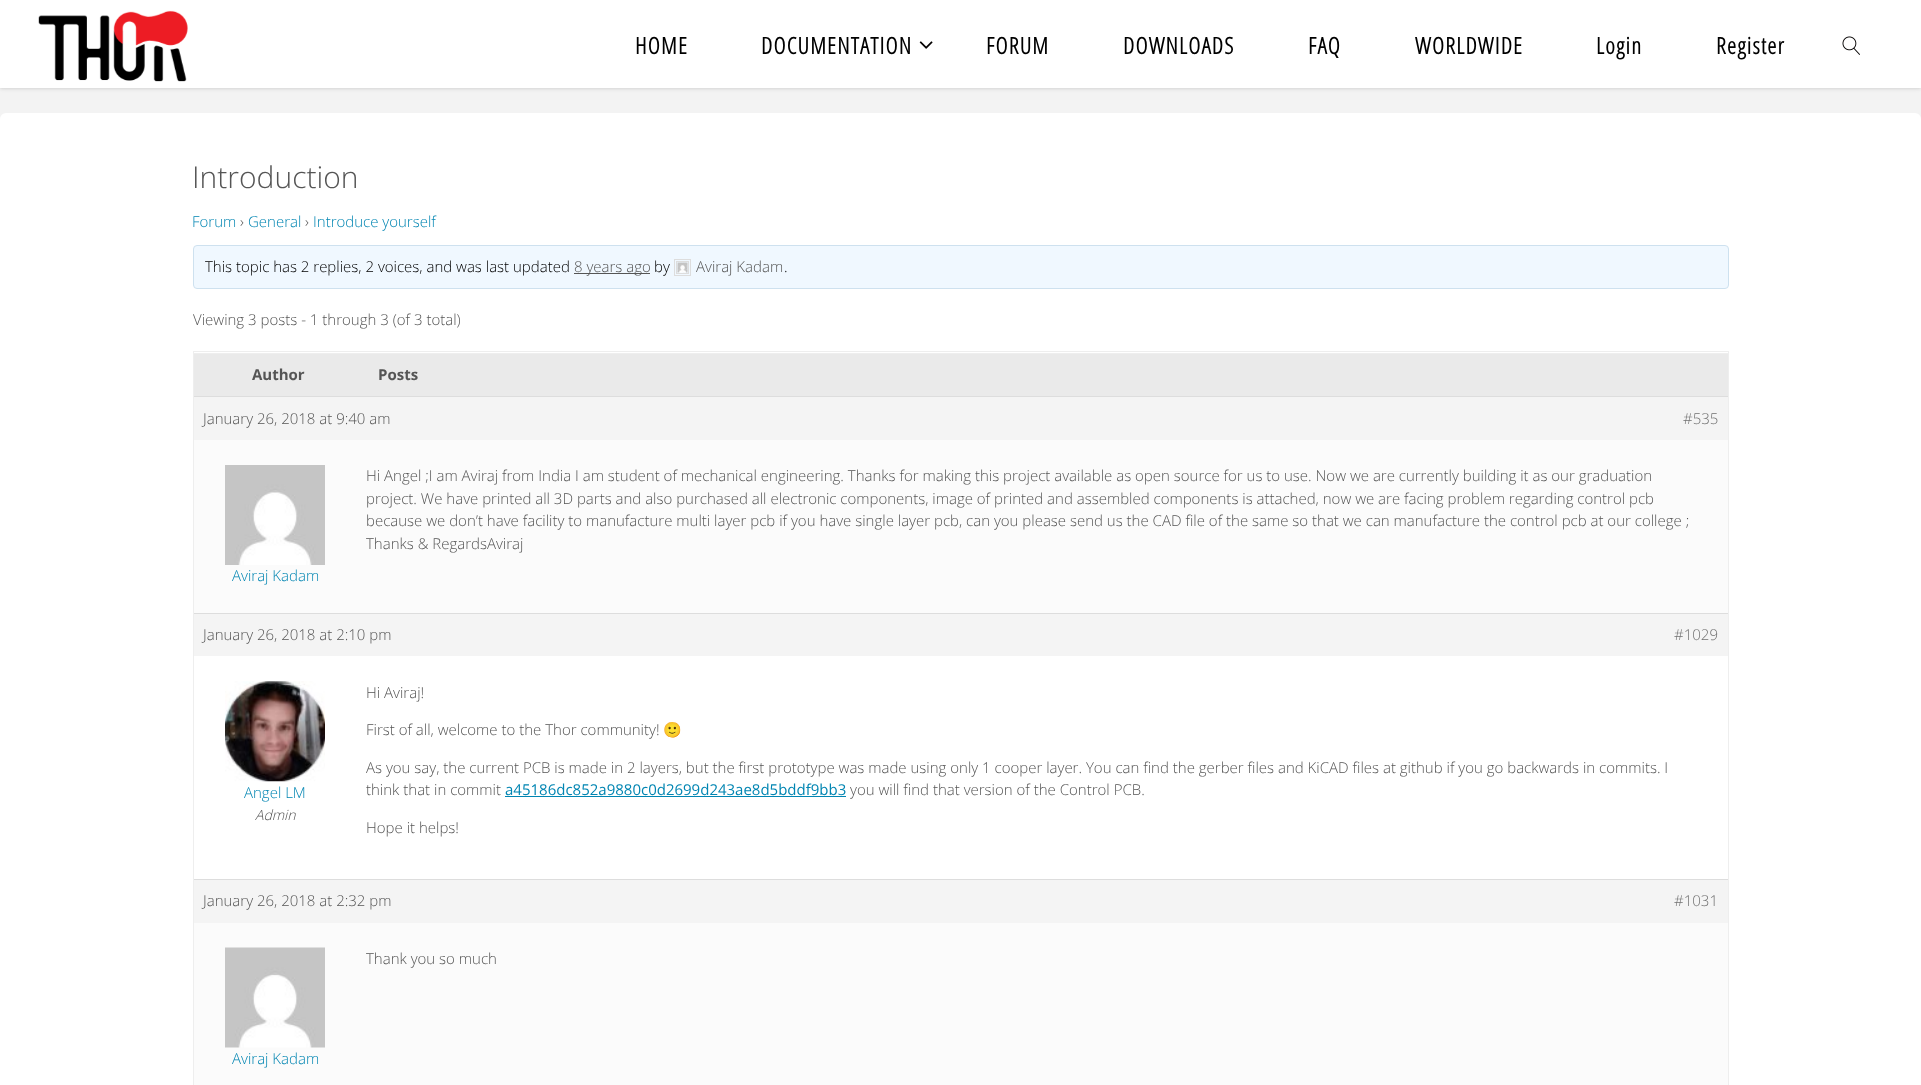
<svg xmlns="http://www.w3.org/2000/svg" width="1921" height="1085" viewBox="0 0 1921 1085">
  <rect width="100%" height="100%" fill="rgb(243,243,243)"/>
  <rect x="0" y="0" width="1921" height="88" fill="rgba(0,0,0,0.2)" filter="blur(2px)"/>
  <rect x="0" y="0" width="1921" height="88" fill="rgb(255,255,255)"/>
  <image x="38" y="10" width="150" height="72" href="pic1.png"/>
  <g font-family="Open Sans Condensed" font-size="23" font-weight="bold" letter-spacing="1.25" fill="rgb(0,0,0)">
    <text x="635" y="54">HOME</text>
    <text x="761" y="54">DOCUMENTATION</text>
  </g>
  <image x="919" y="41" width="14" height="8" href="pic2.png"/>
  <g font-family="Open Sans Condensed" font-size="23" font-weight="bold" letter-spacing="1.25" fill="rgb(0,0,0)">
    <text x="986" y="54">FORUM</text>
    <text x="1123" y="54">DOWNLOADS</text>
    <text x="1308" y="54">FAQ</text>
    <text x="1415" y="54">WORLDWIDE</text>
    <text x="1596" y="54">Login</text>
    <text x="1716" y="54">Register</text>
  </g>
  <image x="1842" y="36" width="18" height="19" href="pic3.png"/>
  <rect x="0" y="113" width="1921" height="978" rx="6" fill="rgb(255,255,255)"/>
  <text x="192" y="188" font-family="Open Sans" font-size="30" font-weight="300" fill="rgb(85,85,85)">Introduction</text>
  <text x="192" y="227" font-family="Open Sans" font-size="15" font-weight="300" fill="rgb(0,133,178)">Forum</text>
  <text x="240" y="227" font-family="Open Sans" font-size="15" font-weight="300" fill="rgb(85,85,85)">›</text>
  <text x="248" y="227" font-family="Open Sans" font-size="15" font-weight="300" fill="rgb(0,133,178)">General</text>
  <text x="305" y="227" font-family="Open Sans" font-size="15" font-weight="300" fill="rgb(85,85,85)">›</text>
  <text x="313" y="227" font-family="Open Sans" font-size="15" font-weight="300" fill="rgb(0,133,178)">Introduce yourself</text>
  <rect x="193.5" y="245.5" width="1535" height="43" rx="3.5" fill="rgb(240,248,255)" stroke="rgb(206,225,239)"/>
  <text x="205" y="272" font-family="Open Sans" font-size="15" font-weight="300" fill="rgb(0,0,0)">This topic has 2 replies, 2 voices, and was last updated</text>
  <rect x="574" y="273" width="76" height="1" fill="rgb(85,85,85)"/>
  <text x="574" y="272" font-family="Open Sans" font-size="15" font-weight="300" fill="rgb(85,85,85)">8 years ago</text>
  <text x="654" y="272" font-family="Open Sans" font-size="15" font-weight="300" fill="rgb(0,0,0)">by</text>
  <rect x="674.5" y="259.5" width="16" height="16" fill="none" stroke="rgb(221,221,221)"/>
  <rect x="676.5" y="261.5" width="12" height="12" fill="none" stroke="rgb(221,221,221)"/>
  <image x="677" y="262" width="11" height="11" href="pic4.png"/>
  <text x="696" y="272" font-family="Open Sans" font-size="15" font-weight="300" fill="rgb(85,85,85)">Aviraj Kadam</text>
  <text x="784" y="272" font-family="Open Sans" font-size="15" font-weight="300" fill="rgb(0,0,0)">.</text>
  <text x="193" y="325" font-family="Open Sans" font-size="15" font-weight="300" fill="rgb(85,85,85)">Viewing 3 posts - 1 through 3 (of 3 total)</text>
  <rect x="193.5" y="351.5" width="1535" height="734" fill="none" stroke="rgb(238,238,238)"/>
  <rect x="194" y="354" width="1534" height="42" fill="rgb(234,234,234)"/>
  <rect x="194" y="353" width="1534" height="1" fill="rgb(238,238,238)"/>
  <g font-family="Open Sans" font-size="15" font-weight="bold" fill="rgb(85,85,85)">
    <text x="252" y="380">Author</text>
    <text x="378" y="380">Posts</text>
  </g>
  <rect x="194" y="397" width="1534" height="43" fill="rgb(244,244,244)"/>
  <rect x="194" y="396" width="1534" height="1" fill="rgb(221,221,221)"/>
  <text x="203" y="424" font-family="Open Sans" font-size="15" font-weight="300" fill="rgb(85,85,85)">January 26, 2018 at 9:40 am</text>
  <text x="1683" y="424" font-family="Open Sans" font-size="15" font-weight="300" fill="rgb(112,112,112)">#535</text>
  <rect x="194" y="440" width="1534" height="173" fill="rgb(251,251,251)"/>
  <g font-family="Open Sans" font-size="15" font-weight="300" fill="rgb(85,85,85)">
    <text>
      <tspan x="366" y="481">Hi Angel ;I am Aviraj from India I am student of mechanical engineering. Thanks for making this project available as open source for us to use. Now we are currently building it as our graduation</tspan>
      <tspan x="366" y="504">project. We have printed all 3D parts and also purchased all electronic components, image of printed and assembled components is attached, now we are facing problem regarding control pcb</tspan>
      <tspan x="366" y="526">because we don’t have facility to manufacture multi layer pcb if you have single layer pcb, can you please send us the CAD file of the same so that we can manufacture the control pcb at our college ;</tspan>
      <tspan x="366" y="549">Thanks &amp; RegardsAviraj</tspan>
    </text>
  </g>
  <image x="225" y="465" width="100" height="100" href="pic5.png"/>
  <text x="232" y="581" font-family="Open Sans" font-size="15" font-weight="300" fill="rgb(0,133,178)">Aviraj Kadam</text>
  <rect x="194" y="614" width="1534" height="42" fill="rgb(244,244,244)"/>
  <rect x="194" y="613" width="1534" height="1" fill="rgb(221,221,221)"/>
  <text x="203" y="640" font-family="Open Sans" font-size="15" font-weight="300" fill="rgb(85,85,85)">January 26, 2018 at 2:10 pm</text>
  <text x="1674" y="640" font-family="Open Sans" font-size="15" font-weight="300" fill="rgb(112,112,112)">#1029</text>
  <image x="225" y="681" width="100" height="101" href="pic6.png"/>
  <text x="244" y="798" font-family="Open Sans" font-size="15" font-weight="300" fill="rgb(0,133,178)">Angel LM</text>
  <text x="255" y="820" font-family="Open Sans" font-size="14" font-weight="300" font-style="italic" fill="rgb(85,85,85)">Admin</text>
  <g font-family="Open Sans" font-size="15" font-weight="300" fill="rgb(85,85,85)">
    <text x="366" y="698">Hi Aviraj!</text>
    <text x="366" y="735">First of all, welcome to the Thor community!</text>
  </g>
  <text x="663" y="735" font-family="Noto Color Emoji" font-size="15" fill="rgb(85,85,85)">🙂</text>
  <g font-family="Open Sans" font-size="15" font-weight="300" fill="rgb(85,85,85)">
    <text>
      <tspan x="366" y="773">As you say, the current PCB is made in 2 layers, but the first prototype was made using only 1 cooper layer. You can find the gerber files and KiCAD files at github if you go backwards in commits. I</tspan>
      <tspan x="366" y="795">think that in commit</tspan>
    </text>
  </g>
  <text x="505" y="795" font-family="Open Sans" font-size="15" fill="rgb(0,133,178)">a45186dc852a9880c0d2699d243ae8d5bddf9bb3</text>
  <rect x="505" y="796" width="341" height="1" fill="rgb(0,133,178)"/>
  <g font-family="Open Sans" font-size="15" font-weight="300" fill="rgb(85,85,85)">
    <text x="850" y="795">you will find that version of the Control PCB.</text>
    <text x="366" y="833">Hope it helps!</text>
  </g>
  <rect x="194" y="880" width="1534" height="43" fill="rgb(244,244,244)"/>
  <rect x="194" y="879" width="1534" height="1" fill="rgb(221,221,221)"/>
  <text x="203" y="906" font-family="Open Sans" font-size="15" font-weight="300" fill="rgb(85,85,85)">January 26, 2018 at 2:32 pm</text>
  <text x="1674" y="906" font-family="Open Sans" font-size="15" font-weight="300" fill="rgb(112,112,112)">#1031</text>
  <rect x="194" y="923" width="1534" height="162" fill="rgb(251,251,251)"/>
  <text x="366" y="964" font-family="Open Sans" font-size="15" font-weight="300" fill="rgb(85,85,85)">Thank you so much</text>
  <image x="225" y="947" width="100" height="101" href="pic7.png"/>
  <text x="232" y="1064" font-family="Open Sans" font-size="15" font-weight="300" fill="rgb(0,133,178)">Aviraj Kadam</text>
</svg>
